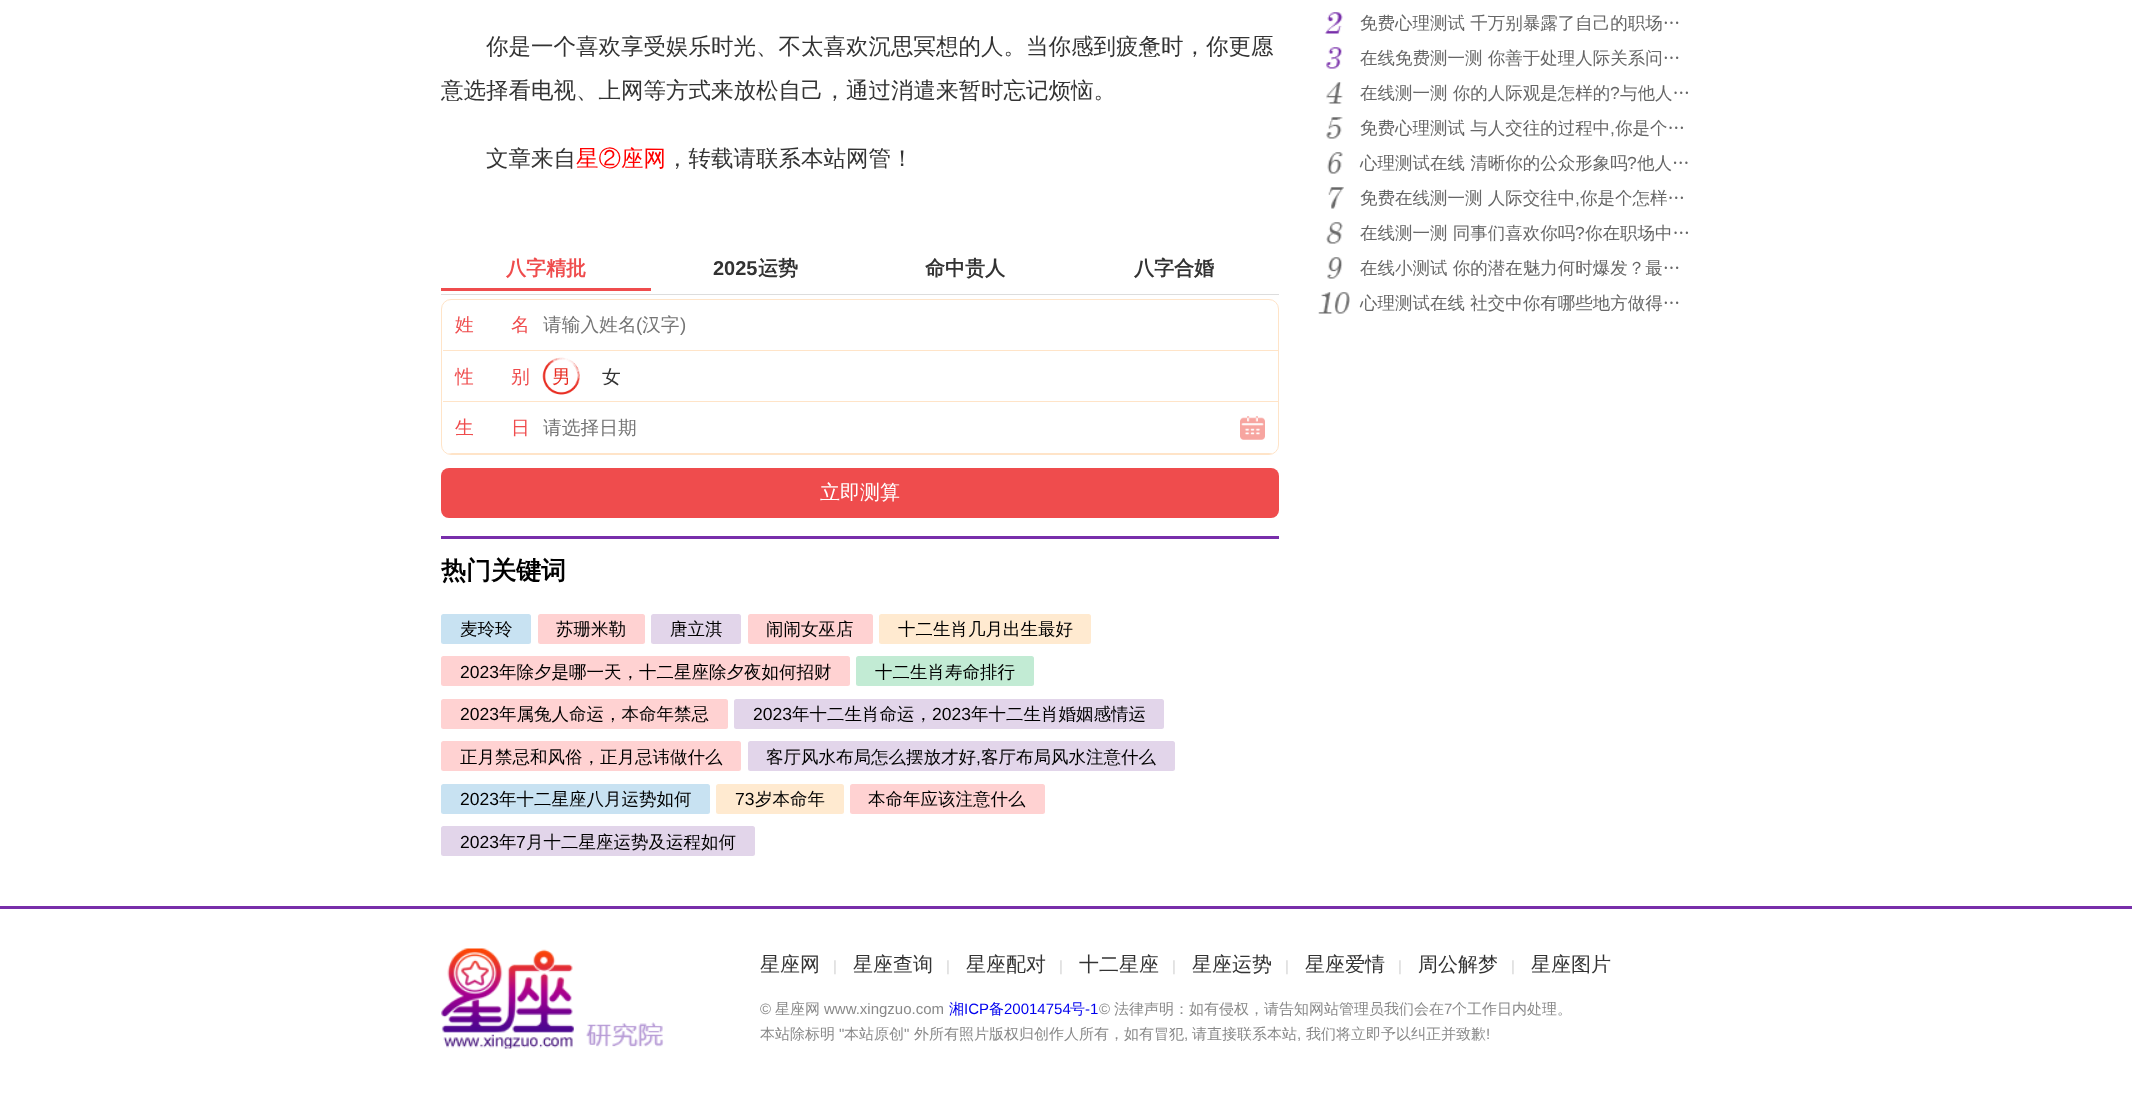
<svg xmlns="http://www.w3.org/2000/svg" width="2132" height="1108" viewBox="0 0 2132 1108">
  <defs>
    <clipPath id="clip1"><rect x="443" y="300" width="835" height="154" rx="9"/></clipPath>
  </defs>
  <rect width="100%" height="100%" fill="rgb(255,255,255)"/>
  <g font-family="WenQuanYi Zen Hei" font-size="22.5" font-weight="500" fill="rgb(51,51,51)">
    <text x="486" y="54">你是一个喜欢享受娱乐时光、不太喜欢沉思冥想的人。当你感到疲惫时，你更愿</text>
    <text x="441" y="98">意选择看电视、上网等方式来放松自己，通过消遣来暂时忘记烦恼。</text>
    <text x="486" y="166">文章来自</text>
  </g>
  <text x="576" y="166" font-family="WenQuanYi Zen Hei" font-size="22.5" font-weight="500" fill="rgb(255,0,0)">星②座网</text>
  <text x="666" y="166" font-family="WenQuanYi Zen Hei" font-size="22.5" font-weight="500" fill="rgb(51,51,51)">，转载请联系本站网管！</text>
  <rect x="441" y="294" width="838" height="1" fill="rgb(221,221,221)"/>
  <rect x="441" y="288" width="210" height="3" fill="rgb(239,76,77)"/>
  <text x="506" y="275" font-family="WenQuanYi Zen Hei" font-size="20" font-weight="bold" fill="rgb(239,76,77)">八字精批</text>
  <text x="713" y="275" font-family="Liberation Sans" font-size="20" font-weight="bold" fill="rgb(51,51,51)">2025</text>
  <g font-family="WenQuanYi Zen Hei" font-size="20" font-weight="bold" fill="rgb(51,51,51)">
    <text x="758" y="275">运势</text>
    <text x="925" y="275">命中贵人</text>
    <text x="1134" y="275">八字合婚</text>
  </g>
  <rect x="441.5" y="299.5" width="837" height="155" rx="9.5" fill="none" stroke="rgb(255,228,200)"/>
  <rect x="443" y="350" width="835" height="1" fill="rgb(255,228,200)"/>
  <g font-family="WenQuanYi Zen Hei" font-size="18.75" font-weight="500" fill="rgb(239,76,77)">
    <text x="455" y="331">姓</text>
    <text x="511" y="331">名</text>
  </g>
  <text x="543" y="331" font-family="WenQuanYi Zen Hei" font-size="18.75" font-weight="500" fill="rgb(117,117,117)">请输入姓名</text>
  <text x="636" y="331" font-family="Liberation Sans" font-size="18.75" fill="rgb(117,117,117)">(</text>
  <text x="642" y="331" font-family="WenQuanYi Zen Hei" font-size="18.75" font-weight="500" fill="rgb(117,117,117)">汉字</text>
  <text x="680" y="331" font-family="Liberation Sans" font-size="18.75" fill="rgb(117,117,117)">)</text>
  <rect x="443" y="401" width="835" height="1" fill="rgb(255,228,200)"/>
  <g font-family="WenQuanYi Zen Hei" font-size="18.75" font-weight="500" fill="rgb(239,76,77)">
    <text x="455" y="383">性</text>
    <text x="511" y="383">别</text>
  </g>
  <image x="542" y="357" width="38" height="38" href="pic1.png"/>
  <text x="552" y="383" font-family="WenQuanYi Zen Hei" font-size="18.75" font-weight="500" fill="rgb(232,46,35)">男</text>
  <text x="602" y="383" font-family="WenQuanYi Zen Hei" font-size="18.75" font-weight="500" fill="rgb(51,51,51)">女</text>
  <g clip-path="url(#clip1)">
    <rect x="443" y="453" width="835" height="1" fill="rgb(255,228,200)"/>
  </g>
  <g font-family="WenQuanYi Zen Hei" font-size="18.75" font-weight="500" fill="rgb(239,76,77)">
    <text x="455" y="434">生</text>
    <text x="511" y="434">日</text>
  </g>
  <image x="1240" y="416" width="25" height="24" href="pic2.png"/>
  <text x="543" y="434" font-family="WenQuanYi Zen Hei" font-size="18.75" font-weight="500" fill="rgb(117,117,117)">请选择日期</text>
  <rect x="441" y="468" width="838" height="50" rx="8" fill="rgb(239,76,77)"/>
  <text x="820" y="499" font-family="WenQuanYi Zen Hei" font-size="20" font-weight="500" fill="rgb(255,255,255)">立即测算</text>
  <rect x="441" y="536" width="838" height="3" fill="rgb(120,46,171)"/>
  <text x="441" y="579" font-family="WenQuanYi Zen Hei" font-size="25" font-weight="bold" fill="rgb(0,0,0)">热门关键词</text>
  <rect x="441" y="614" width="90" height="30" rx="2.5" fill="rgb(200,226,242)"/>
  <text x="460" y="635" font-family="WenQuanYi Zen Hei" font-size="17.5" font-weight="500" fill="rgb(0,0,0)">麦玲玲</text>
  <rect x="538" y="614" width="107" height="30" rx="2.5" fill="rgb(255,210,210)"/>
  <text x="556" y="635" font-family="WenQuanYi Zen Hei" font-size="17.5" font-weight="500" fill="rgb(0,0,0)">苏珊米勒</text>
  <rect x="651" y="614" width="90" height="30" rx="2.5" fill="rgb(226,213,234)"/>
  <text x="670" y="635" font-family="WenQuanYi Zen Hei" font-size="17.5" font-weight="500" fill="rgb(0,0,0)">唐立淇</text>
  <rect x="748" y="614" width="125" height="30" rx="2.5" fill="rgb(255,210,210)"/>
  <text x="766" y="635" font-family="WenQuanYi Zen Hei" font-size="17.5" font-weight="500" fill="rgb(0,0,0)">闹闹女巫店</text>
  <rect x="879" y="614" width="212" height="30" rx="2.5" fill="rgb(255,234,208)"/>
  <text x="898" y="635" font-family="WenQuanYi Zen Hei" font-size="17.5" font-weight="500" fill="rgb(0,0,0)">十二生肖几月出生最好</text>
  <rect x="441" y="656" width="409" height="30" rx="2.5" fill="rgb(255,210,210)"/>
  <text x="460" y="678" font-family="Liberation Sans" font-size="17.5" fill="rgb(0,0,0)">2023</text>
  <text x="499" y="678" font-family="WenQuanYi Zen Hei" font-size="17.5" font-weight="500" fill="rgb(0,0,0)">年除夕是哪一天，十二星座除夕夜如何招财</text>
  <rect x="856" y="656" width="178" height="30" rx="2.5" fill="rgb(194,235,212)"/>
  <text x="875" y="678" font-family="WenQuanYi Zen Hei" font-size="17.5" font-weight="500" fill="rgb(0,0,0)">十二生肖寿命排行</text>
  <rect x="441" y="699" width="287" height="30" rx="2.5" fill="rgb(255,210,210)"/>
  <text x="460" y="720" font-family="Liberation Sans" font-size="17.5" fill="rgb(0,0,0)">2023</text>
  <text x="499" y="720" font-family="WenQuanYi Zen Hei" font-size="17.5" font-weight="500" fill="rgb(0,0,0)">年属兔人命运，本命年禁忌</text>
  <rect x="734" y="699" width="430" height="30" rx="2.5" fill="rgb(226,213,234)"/>
  <text x="753" y="720" font-family="Liberation Sans" font-size="17.5" fill="rgb(0,0,0)">2023</text>
  <text x="792" y="720" font-family="WenQuanYi Zen Hei" font-size="17.5" font-weight="500" fill="rgb(0,0,0)">年十二生肖命运，</text>
  <text x="932" y="720" font-family="Liberation Sans" font-size="17.5" fill="rgb(0,0,0)">2023</text>
  <text x="971" y="720" font-family="WenQuanYi Zen Hei" font-size="17.5" font-weight="500" fill="rgb(0,0,0)">年十二生肖婚姻感情运</text>
  <rect x="441" y="741" width="300" height="30" rx="2.5" fill="rgb(255,210,210)"/>
  <text x="460" y="763" font-family="WenQuanYi Zen Hei" font-size="17.5" font-weight="500" fill="rgb(0,0,0)">正月禁忌和风俗，正月忌讳做什么</text>
  <rect x="748" y="741" width="427" height="30" rx="2.5" fill="rgb(226,213,234)"/>
  <text x="766" y="763" font-family="WenQuanYi Zen Hei" font-size="17.5" font-weight="500" fill="rgb(0,0,0)">客厅风水布局怎么摆放才好</text>
  <text x="976" y="763" font-family="Liberation Sans" font-size="17.5" fill="rgb(0,0,0)">,</text>
  <text x="981" y="763" font-family="WenQuanYi Zen Hei" font-size="17.5" font-weight="500" fill="rgb(0,0,0)">客厅布局风水注意什么</text>
  <rect x="441" y="784" width="269" height="30" rx="2.5" fill="rgb(200,226,242)"/>
  <text x="460" y="805" font-family="Liberation Sans" font-size="17.5" fill="rgb(0,0,0)">2023</text>
  <text x="499" y="805" font-family="WenQuanYi Zen Hei" font-size="17.5" font-weight="500" fill="rgb(0,0,0)">年十二星座八月运势如何</text>
  <rect x="716" y="784" width="128" height="30" rx="2.5" fill="rgb(255,234,208)"/>
  <text x="735" y="805" font-family="Liberation Sans" font-size="17.5" fill="rgb(0,0,0)">73</text>
  <text x="755" y="805" font-family="WenQuanYi Zen Hei" font-size="17.5" font-weight="500" fill="rgb(0,0,0)">岁本命年</text>
  <rect x="850" y="784" width="195" height="30" rx="2.5" fill="rgb(255,210,210)"/>
  <text x="868" y="805" font-family="WenQuanYi Zen Hei" font-size="17.5" font-weight="500" fill="rgb(0,0,0)">本命年应该注意什么</text>
  <rect x="441" y="826" width="314" height="30" rx="2.5" fill="rgb(226,213,234)"/>
  <text x="460" y="848" font-family="Liberation Sans" font-size="17.5" fill="rgb(0,0,0)">2023</text>
  <text x="499" y="848" font-family="WenQuanYi Zen Hei" font-size="17.5" font-weight="500" fill="rgb(0,0,0)">年</text>
  <text x="516" y="848" font-family="Liberation Sans" font-size="17.5" fill="rgb(0,0,0)">7</text>
  <text x="526" y="848" font-family="WenQuanYi Zen Hei" font-size="17.5" font-weight="500" fill="rgb(0,0,0)">月十二星座运势及运程如何</text>
  <image x="1318" y="12" width="32" height="302" href="pic3.png"/>
  <g font-family="WenQuanYi Zen Hei" font-size="17.5" font-weight="500" fill="rgb(102,102,102)">
    <text x="1360" y="29">免费心理测试 千万别暴露了自己的职场…</text>
    <text x="1360" y="64">在线免费测一测 你善于处理人际关系问…</text>
    <text x="1360" y="99">在线测一测 你的人际观是怎样的</text>
  </g>
  <text x="1610" y="99" font-family="Liberation Sans" font-size="17.5" fill="rgb(102,102,102)">?</text>
  <g font-family="WenQuanYi Zen Hei" font-size="17.5" font-weight="500" fill="rgb(102,102,102)">
    <text x="1620" y="99">与他人…</text>
    <text x="1360" y="134">免费心理测试 与人交往的过程中</text>
  </g>
  <text x="1610" y="134" font-family="Liberation Sans" font-size="17.5" fill="rgb(102,102,102)">,</text>
  <g font-family="WenQuanYi Zen Hei" font-size="17.5" font-weight="500" fill="rgb(102,102,102)">
    <text x="1615" y="134">你是个…</text>
    <text x="1360" y="169">心理测试在线 清晰你的公众形象吗</text>
  </g>
  <text x="1627" y="169" font-family="Liberation Sans" font-size="17.5" fill="rgb(102,102,102)">?</text>
  <g font-family="WenQuanYi Zen Hei" font-size="17.5" font-weight="500" fill="rgb(102,102,102)">
    <text x="1637" y="169">他人…</text>
    <text x="1360" y="204">免费在线测一测 人际交往中</text>
  </g>
  <text x="1575" y="204" font-family="Liberation Sans" font-size="17.5" fill="rgb(102,102,102)">,</text>
  <g font-family="WenQuanYi Zen Hei" font-size="17.5" font-weight="500" fill="rgb(102,102,102)">
    <text x="1580" y="204">你是个怎样…</text>
    <text x="1360" y="239">在线测一测 同事们喜欢你吗</text>
  </g>
  <text x="1575" y="239" font-family="Liberation Sans" font-size="17.5" fill="rgb(102,102,102)">?</text>
  <g font-family="WenQuanYi Zen Hei" font-size="17.5" font-weight="500" fill="rgb(102,102,102)">
    <text x="1585" y="239">你在职场中…</text>
    <text x="1360" y="274">在线小测试 你的潜在魅力何时爆发？最…</text>
    <text x="1360" y="309">心理测试在线 社交中你有哪些地方做得…</text>
  </g>
  <rect x="0" y="906" width="2132" height="3" fill="rgb(120,47,170)"/>
  <image x="441" y="948" width="223" height="101" href="pic4.png"/>
  <text x="760" y="971" font-family="WenQuanYi Zen Hei" font-size="20" font-weight="500" fill="rgb(51,51,51)">星座网</text>
  <text x="833" y="971" font-family="Liberation Sans" font-size="15" fill="rgb(214,214,214)">|</text>
  <text x="853" y="971" font-family="WenQuanYi Zen Hei" font-size="20" font-weight="500" fill="rgb(51,51,51)">星座查询</text>
  <text x="946" y="971" font-family="Liberation Sans" font-size="15" fill="rgb(214,214,214)">|</text>
  <text x="966" y="971" font-family="WenQuanYi Zen Hei" font-size="20" font-weight="500" fill="rgb(51,51,51)">星座配对</text>
  <text x="1059" y="971" font-family="Liberation Sans" font-size="15" fill="rgb(214,214,214)">|</text>
  <text x="1079" y="971" font-family="WenQuanYi Zen Hei" font-size="20" font-weight="500" fill="rgb(51,51,51)">十二星座</text>
  <text x="1172" y="971" font-family="Liberation Sans" font-size="15" fill="rgb(214,214,214)">|</text>
  <text x="1192" y="971" font-family="WenQuanYi Zen Hei" font-size="20" font-weight="500" fill="rgb(51,51,51)">星座运势</text>
  <text x="1285" y="971" font-family="Liberation Sans" font-size="15" fill="rgb(214,214,214)">|</text>
  <text x="1305" y="971" font-family="WenQuanYi Zen Hei" font-size="20" font-weight="500" fill="rgb(51,51,51)">星座爱情</text>
  <text x="1398" y="971" font-family="Liberation Sans" font-size="15" fill="rgb(214,214,214)">|</text>
  <text x="1418" y="971" font-family="WenQuanYi Zen Hei" font-size="20" font-weight="500" fill="rgb(51,51,51)">周公解梦</text>
  <text x="1511" y="971" font-family="Liberation Sans" font-size="15" fill="rgb(214,214,214)">|</text>
  <text x="1531" y="971" font-family="WenQuanYi Zen Hei" font-size="20" font-weight="500" fill="rgb(51,51,51)">星座图片</text>
  <text x="760" y="1014" font-family="Liberation Sans" font-size="15" fill="rgb(137,137,137)">©</text>
  <text x="775" y="1014" font-family="WenQuanYi Zen Hei" font-size="15" font-weight="500" fill="rgb(137,137,137)">星座网</text>
  <text x="824" y="1014" font-family="Liberation Sans" font-size="15" fill="rgb(137,137,137)">www.xingzuo.com</text>
  <text x="949" y="1014" font-family="WenQuanYi Zen Hei" font-size="15" font-weight="500" fill="rgb(0,0,238)">湘</text>
  <text x="964" y="1014" font-family="Liberation Sans" font-size="15" fill="rgb(0,0,238)">ICP</text>
  <text x="989" y="1014" font-family="WenQuanYi Zen Hei" font-size="15" font-weight="500" fill="rgb(0,0,238)">备</text>
  <text x="1004" y="1014" font-family="Liberation Sans" font-size="15" fill="rgb(0,0,238)">20014754</text>
  <text x="1070" y="1014" font-family="WenQuanYi Zen Hei" font-size="15" font-weight="500" fill="rgb(0,0,238)">号</text>
  <text x="1085" y="1014" font-family="Liberation Sans" font-size="15" fill="rgb(0,0,238)">-1</text>
  <text x="1099" y="1014" font-family="Liberation Sans" font-size="15" fill="rgb(137,137,137)">©</text>
  <text x="1114" y="1014" font-family="WenQuanYi Zen Hei" font-size="15" font-weight="500" fill="rgb(137,137,137)">法律声明：如有侵权，请告知网站管理员我们会在</text>
  <text x="1444" y="1014" font-family="Liberation Sans" font-size="15" fill="rgb(137,137,137)">7</text>
  <g font-family="WenQuanYi Zen Hei" font-size="15" font-weight="500" fill="rgb(137,137,137)">
    <text x="1452" y="1014">个工作日内处理。</text>
    <text x="760" y="1039">本站除标明</text>
  </g>
  <text x="839" y="1039" font-family="Liberation Sans" font-size="15" fill="rgb(137,137,137)">"</text>
  <text x="844" y="1039" font-family="WenQuanYi Zen Hei" font-size="15" font-weight="500" fill="rgb(137,137,137)">本站原创</text>
  <text x="904" y="1039" font-family="Liberation Sans" font-size="15" fill="rgb(137,137,137)">"</text>
  <text x="914" y="1039" font-family="WenQuanYi Zen Hei" font-size="15" font-weight="500" fill="rgb(137,137,137)">外所有照片版权归创作人所有，如有冒犯</text>
  <text x="1184" y="1039" font-family="Liberation Sans" font-size="15" fill="rgb(137,137,137)">,</text>
  <text x="1192" y="1039" font-family="WenQuanYi Zen Hei" font-size="15" font-weight="500" fill="rgb(137,137,137)">请直接联系本站</text>
  <text x="1297" y="1039" font-family="Liberation Sans" font-size="15" fill="rgb(137,137,137)">,</text>
  <text x="1306" y="1039" font-family="WenQuanYi Zen Hei" font-size="15" font-weight="500" fill="rgb(137,137,137)">我们将立即予以纠正并致歉</text>
  <text x="1486" y="1039" font-family="Liberation Sans" font-size="15" fill="rgb(137,137,137)">!</text>
</svg>
